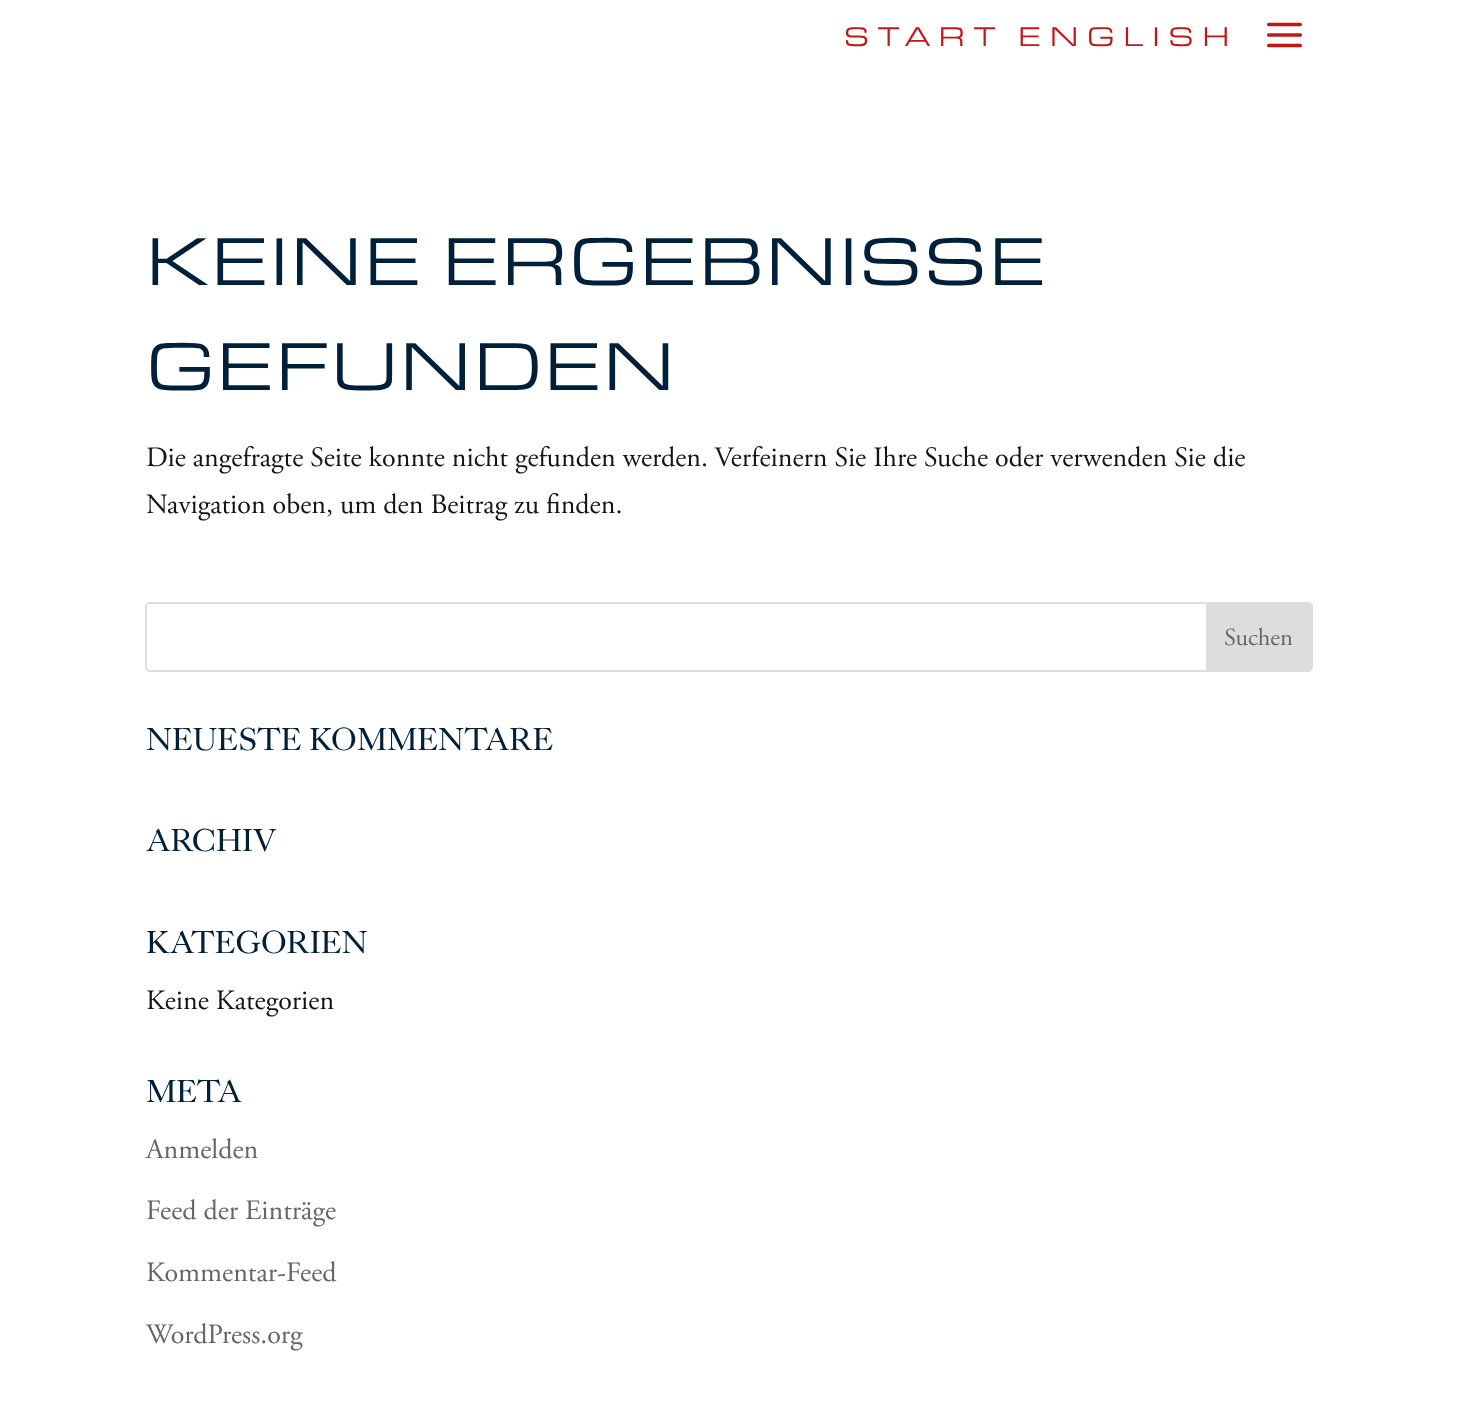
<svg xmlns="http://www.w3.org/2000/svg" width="1457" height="1423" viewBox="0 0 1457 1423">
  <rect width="100%" height="100%" fill="rgb(255,255,255)"/>
  <g font-family="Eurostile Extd" font-size="28" letter-spacing="8.75" fill="rgb(193,23,23)">
    <text x="844" y="46">START</text>
    <text x="1018" y="46">ENGLISH</text>
  </g>
  <image x="1267" y="22" width="35" height="26" href="pic1.png"/>
  <g font-family="Eurostile Extd" font-size="70" letter-spacing="1.75" fill="rgb(0,31,57)">
    <text>
      <tspan x="146" y="285">KEINE ERGEBNISSE</tspan>
      <tspan x="146" y="390">GEFUNDEN</tspan>
    </text>
  </g>
  <g font-family="Adobe Garamond" font-size="28" fill="rgb(20,20,25)">
    <text>
      <tspan x="146" y="466">Die angefragte Seite konnte nicht gefunden werden. Verfeinern Sie Ihre Suche oder verwenden Sie die</tspan>
      <tspan x="146" y="513">Navigation oben, um den Beitrag zu finden.</tspan>
    </text>
  </g>
  <rect x="146" y="603" width="1166" height="68" rx="4" fill="none" stroke="rgb(221,221,221)" stroke-width="2"/>
  <path d="M1207 603H1308C1310 603 1312 605 1312 607V667C1312 669 1310 671 1308 671H1207Z" fill="rgb(221,221,221)" stroke="rgb(221,221,221)" stroke-width="2"/>
  <text x="1224" y="645" font-family="Adobe Garamond" font-size="24.5" fill="rgb(102,102,102)">Suchen</text>
  <g font-family="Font" font-size="31.5" fill="rgb(0,31,57)">
    <text x="146" y="750">NEUESTE KOMMENTARE</text>
    <text x="146" y="851">ARCHIV</text>
    <text x="146" y="953">KATEGORIEN</text>
  </g>
  <text x="146" y="1009" font-family="Adobe Garamond" font-size="28" fill="rgb(20,20,25)">Keine Kategorien</text>
  <text x="146" y="1102" font-family="Font" font-size="31.5" fill="rgb(0,31,57)">META</text>
  <g font-family="Adobe Garamond" font-size="28" fill="rgb(102,102,102)">
    <text x="146" y="1158">Anmelden</text>
    <text x="146" y="1219">Feed der Einträge</text>
    <text x="146" y="1281">Kommentar-Feed</text>
    <text x="146" y="1343">WordPress.org</text>
  </g>
</svg>
